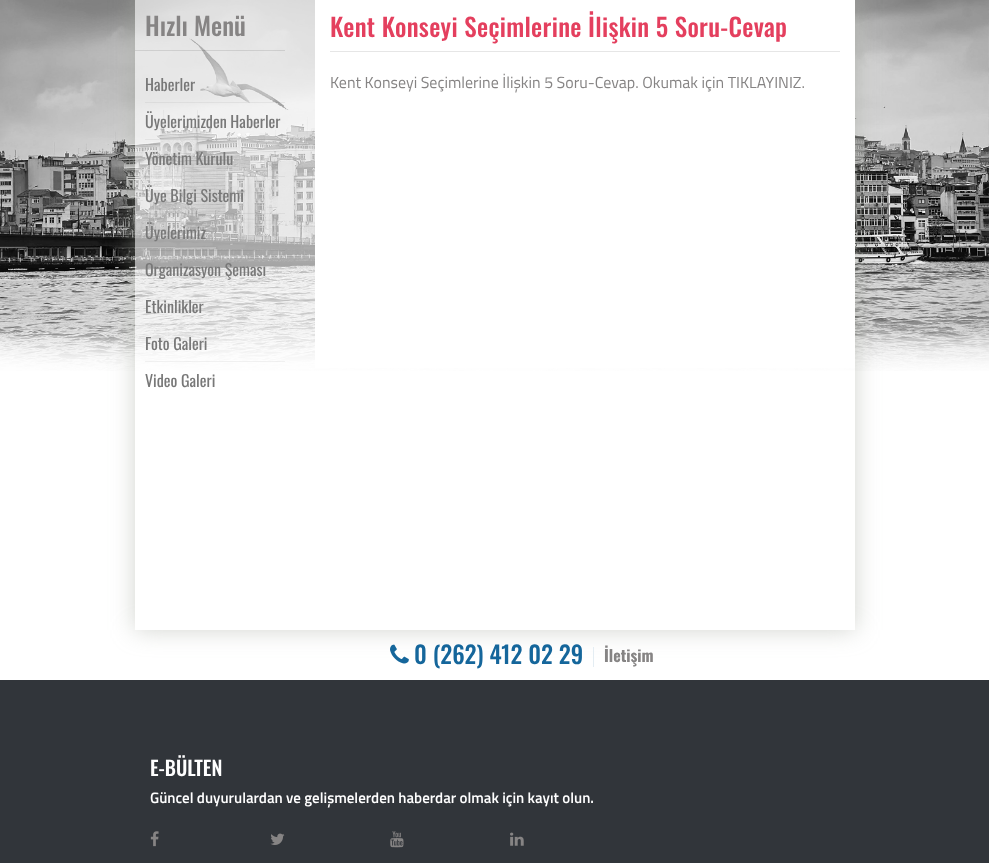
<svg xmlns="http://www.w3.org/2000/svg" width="989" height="863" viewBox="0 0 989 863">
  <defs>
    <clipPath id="clip1"><path d="M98 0H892V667H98ZM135 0H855V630H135Z" clip-rule="evenodd"/></clipPath>
  </defs>
  <rect width="100%" height="100%" fill="rgb(255,255,255)"/>
  <image x="0" y="0" width="989" height="371" href="pic1.png"/>
  <g clip-path="url(#clip1)">
    <rect x="135" y="0" width="720" height="630" fill="rgba(157,162,151,0.46)" filter="blur(12px)"/>
  </g>
  <rect x="135" y="0" width="720" height="371" fill="rgba(255,255,255,0.63)"/>
  <rect x="135" y="50" width="150" height="1" fill="rgba(0,0,0,0.1)"/>
  <text x="145" y="36" font-family="Oswald" font-size="25" font-weight="500" fill="rgb(134,132,132)">Hızlı Menü</text>
  <rect x="145" y="102" width="140" height="1" fill="rgba(0,0,0,0.05)"/>
  <text x="145" y="91" font-family="Oswald" font-size="16" fill="rgb(120,120,120)">Haberler</text>
  <rect x="145" y="139" width="140" height="1" fill="rgba(0,0,0,0.05)"/>
  <text x="145" y="128" font-family="Oswald" font-size="16" fill="rgb(120,120,120)">Üyelerimizden Haberler</text>
  <rect x="145" y="176" width="140" height="1" fill="rgba(0,0,0,0.05)"/>
  <text x="145" y="165" font-family="Oswald" font-size="16" fill="rgb(120,120,120)">Yönetim Kurulu</text>
  <rect x="145" y="213" width="140" height="1" fill="rgba(0,0,0,0.05)"/>
  <text x="145" y="202" font-family="Oswald" font-size="16" fill="rgb(120,120,120)">Üye Bilgi Sistemi</text>
  <rect x="145" y="250" width="140" height="1" fill="rgba(0,0,0,0.05)"/>
  <text x="145" y="239" font-family="Oswald" font-size="16" fill="rgb(120,120,120)">Üyelerimiz</text>
  <rect x="145" y="287" width="140" height="1" fill="rgba(0,0,0,0.05)"/>
  <text x="145" y="276" font-family="Oswald" font-size="16" fill="rgb(120,120,120)">Organizasyon Şeması</text>
  <rect x="145" y="324" width="140" height="1" fill="rgba(0,0,0,0.05)"/>
  <text x="145" y="313" font-family="Oswald" font-size="16" fill="rgb(120,120,120)">Etkinlikler</text>
  <rect x="145" y="361" width="140" height="1" fill="rgba(0,0,0,0.05)"/>
  <g font-family="Oswald" font-size="16" fill="rgb(120,120,120)">
    <text x="145" y="350">Foto Galeri</text>
    <text x="145" y="387">Video Galeri</text>
  </g>
  <rect x="315" y="0" width="540" height="368" fill="rgb(255,255,255)"/>
  <rect x="330" y="51" width="510" height="1" fill="rgb(230,230,230)"/>
  <text x="330" y="37" font-family="Oswald" font-size="25" font-weight="500" letter-spacing="0.3" fill="rgb(228,63,94)">Kent Konseyi Seçimlerine İlişkin 5 Soru-Cevap</text>
  <text x="330" y="88" font-family="Titillium Web" font-size="16" fill="rgb(134,132,132)">Kent Konseyi Seçimlerine İlişkin 5 Soru-Cevap. Okumak için TIKLAYINIZ.</text>
  <image x="390" y="644" width="19" height="20" href="pic2.png"/>
  <text x="414" y="664" font-family="Oswald" font-size="24" font-weight="500" fill="rgb(21,102,155)">0 (262) 412 02 29</text>
  <rect x="593" y="647" width="1" height="20" fill="rgb(228,237,243)"/>
  <text x="604" y="662" font-family="Oswald" font-size="16" font-weight="bold" fill="rgb(134,132,132)">İletişim</text>
  <rect x="0" y="680" width="989" height="183" fill="rgb(49,53,58)"/>
  <text x="150" y="776" font-family="Oswald" font-size="20" font-weight="500" fill="rgb(255,255,255)">E-BÜLTEN</text>
  <text x="150" y="803" font-family="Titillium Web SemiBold" font-size="15" font-weight="600" fill="rgb(255,255,255)">Güncel duyurulardan ve gelişmelerden haberdar olmak için kayıt olun.</text>
  <image x="150" y="831" width="9" height="16" href="pic3.png"/>
  <image x="270" y="833" width="15" height="12" href="pic4.png"/>
  <image x="390" y="831" width="14" height="17" href="pic5.png"/>
  <image x="510" y="832" width="14" height="14" href="pic6.png"/>
</svg>
